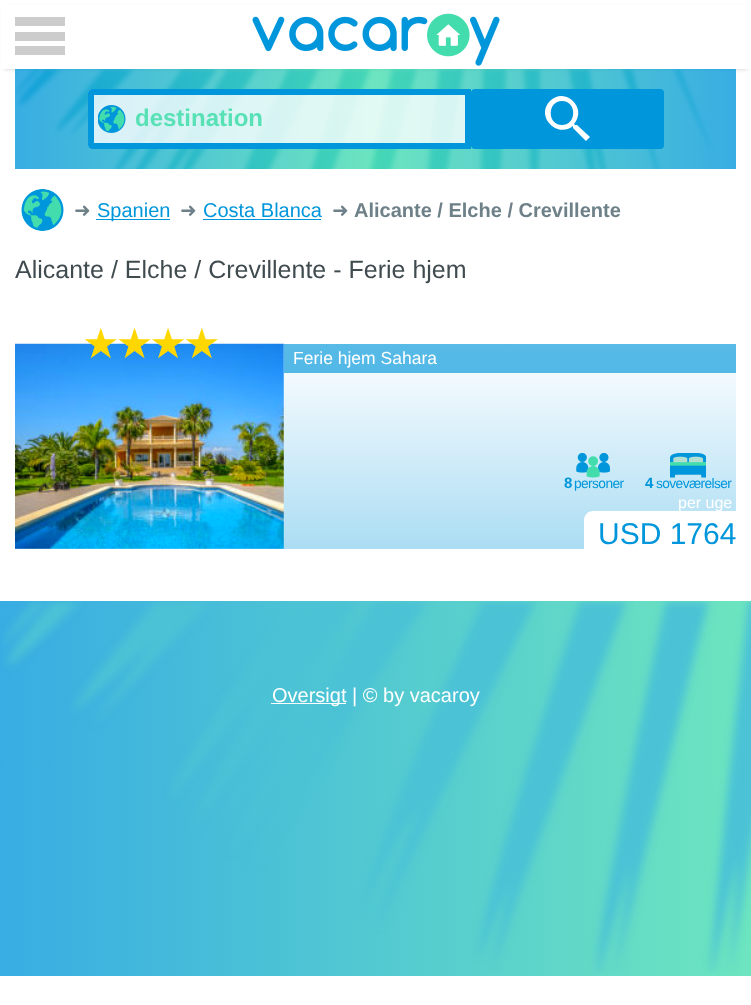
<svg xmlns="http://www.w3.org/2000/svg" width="751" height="1005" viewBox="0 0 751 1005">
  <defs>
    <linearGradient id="g1" gradientUnits="userSpaceOnUse" x1="15" y1="119" x2="736" y2="119"><stop offset="0" stop-color="rgb(0,150,219)" stop-opacity="0.78"/><stop offset="0.5" stop-color="rgb(67,221,173)" stop-opacity="0.78"/><stop offset="1" stop-color="rgb(0,150,219)" stop-opacity="0.78"/></linearGradient>
    <linearGradient id="g2" gradientUnits="userSpaceOnUse" x1="376" y1="344" x2="376" y2="549"><stop offset="0" stop-color="rgb(255,255,255)"/><stop offset="1" stop-color="rgb(171,221,243)"/></linearGradient>
    <linearGradient id="g3" gradientUnits="userSpaceOnUse" x1="376" y1="344" x2="376" y2="549"><stop offset="0" stop-color="rgb(87,186,231)"/><stop offset="1" stop-color="rgb(58,174,227)"/></linearGradient>
    <linearGradient id="g4" gradientUnits="userSpaceOnUse" x1="0" y1="789" x2="751" y2="789"><stop offset="0" stop-color="rgb(56,173,227)"/><stop offset="1" stop-color="rgb(109,229,191)"/></linearGradient>
  </defs>
  <rect width="100%" height="100%" fill="rgb(255,255,255)"/>
  <image x="15" y="69" width="701" height="100" href="pic2.png"/>
  <rect x="4" y="8" width="744" height="61" fill="rgba(0,0,0,0.2)" filter="blur(2px)"/>
  <rect x="1" y="5" width="750" height="64" fill="rgb(255,255,255)"/>
  <path d="M15 46H65V55H15ZM15 32H65V41H15ZM15 17H65V26H15Z" fill="rgb(204,204,204)"/>
  <image x="252" y="13" width="248" height="53" href="pic1.png"/>
  <rect x="15" y="69" width="721" height="100" fill="url(#g1)"/>
  <path d="M92 89H471V149H92C90 149 88 147 88 145V93C88 91 90 89 92 89Z" fill="rgba(255,255,255,0.8)"/>
  <image x="98" y="105" width="28" height="28" href="pic3.png"/>
  <path d="M92 92H468V146H92C91.5 146 91 145.5 91 145V93C91 92.5 91.5 92 92 92Z" fill="none" stroke="rgb(0,150,219)" stroke-width="6"/>
  <text x="135" y="126" font-family="Liberation Sans" font-size="24" font-weight="bold" fill="rgb(89,225,182)">destination</text>
  <rect x="471" y="89" width="193" height="60" rx="4" fill="rgb(0,150,219)"/>
  <path d="M577 125H575L574 124C588 108 565 86 550 101C535 116 557 139 573 126V128L586 141L590 137ZM562 125C547 125 547 101 562 101C577 101 577 125 562 125Z" fill="rgb(255,255,255)"/>
  <image x="21" y="189" width="43" height="42" href="pic4.png"/>
  <text x="74" y="217" font-family="DejaVu Sans" font-size="20" fill="rgb(110,128,136)">➜</text>
  <rect x="96" y="219" width="74" height="1" fill="rgb(0,150,219)"/>
  <text x="97" y="217" font-family="Liberation Sans" font-size="20" fill="rgb(0,150,219)">Spanien</text>
  <text x="180" y="217" font-family="DejaVu Sans" font-size="20" fill="rgb(110,128,136)">➜</text>
  <text x="203" y="217" font-family="Liberation Sans" font-size="20" fill="rgb(0,150,219)">Costa Blanca</text>
  <rect x="203" y="219" width="118" height="1" fill="rgb(0,150,219)"/>
  <text x="332" y="217" font-family="DejaVu Sans" font-size="20" fill="rgb(110,128,136)">➜</text>
  <text x="354" y="217" font-family="Liberation Sans" font-size="20" font-weight="bold" fill="rgb(110,128,136)">Alicante / Elche / Crevillente</text>
  <text x="15" y="278" font-family="Liberation Sans" font-size="25" fill="rgb(64,75,80)">Alicante / Elche / Crevillente - Ferie hjem</text>
  <rect x="15" y="350" width="721" height="199" fill="url(#g2)"/>
  <rect x="284" y="344" width="452" height="29" fill="url(#g3)"/>
  <image x="15" y="343" width="269" height="206" href="pic5.png"/>
  <text x="82" y="358" font-family="DejaVu Sans" font-size="42" letter-spacing="-4" fill="rgb(255,215,0)">★★★★</text>
  <text x="293" y="364" font-family="Liberation Sans" font-size="17.5" fill="rgb(255,255,255)">Ferie hjem Sahara</text>
  <image x="576" y="453" width="34" height="25" href="pic6.png"/>
  <text x="564" y="488" font-family="Liberation Sans" font-size="15" font-weight="bold" letter-spacing="-0.6" fill="rgb(0,150,219)">8</text>
  <text x="574" y="488" font-family="Liberation Sans" font-size="13.75" letter-spacing="-0.6" fill="rgb(0,150,219)">personer</text>
  <image x="670" y="453" width="36" height="25" href="pic7.png"/>
  <text x="645" y="488" font-family="Liberation Sans" font-size="15" font-weight="bold" letter-spacing="-0.6" fill="rgb(0,150,219)">4</text>
  <text x="656" y="488" font-family="Liberation Sans" font-size="13.75" letter-spacing="-0.6" fill="rgb(0,150,219)">soveværelser</text>
  <path d="M593 511H736V549H584V520C584 515 588 511 593 511Z" fill="rgb(255,255,255)"/>
  <text x="678" y="508" font-family="Liberation Sans" font-size="16" fill="rgb(255,255,255)">per uge</text>
  <text x="598" y="544" font-family="Liberation Sans" font-size="30" fill="rgb(0,150,219)">USD 1764</text>
  <rect x="0" y="601" width="751" height="375" fill="url(#g4)"/>
  <image x="2" y="601" width="749" height="372" href="pic8.png"/>
  <rect x="271" y="703" width="75" height="1" fill="rgb(255,255,255)"/>
  <text x="272" y="702" font-family="Liberation Sans" font-size="20" fill="rgb(255,255,255)">Oversigt | © by vacaroy</text>
</svg>
